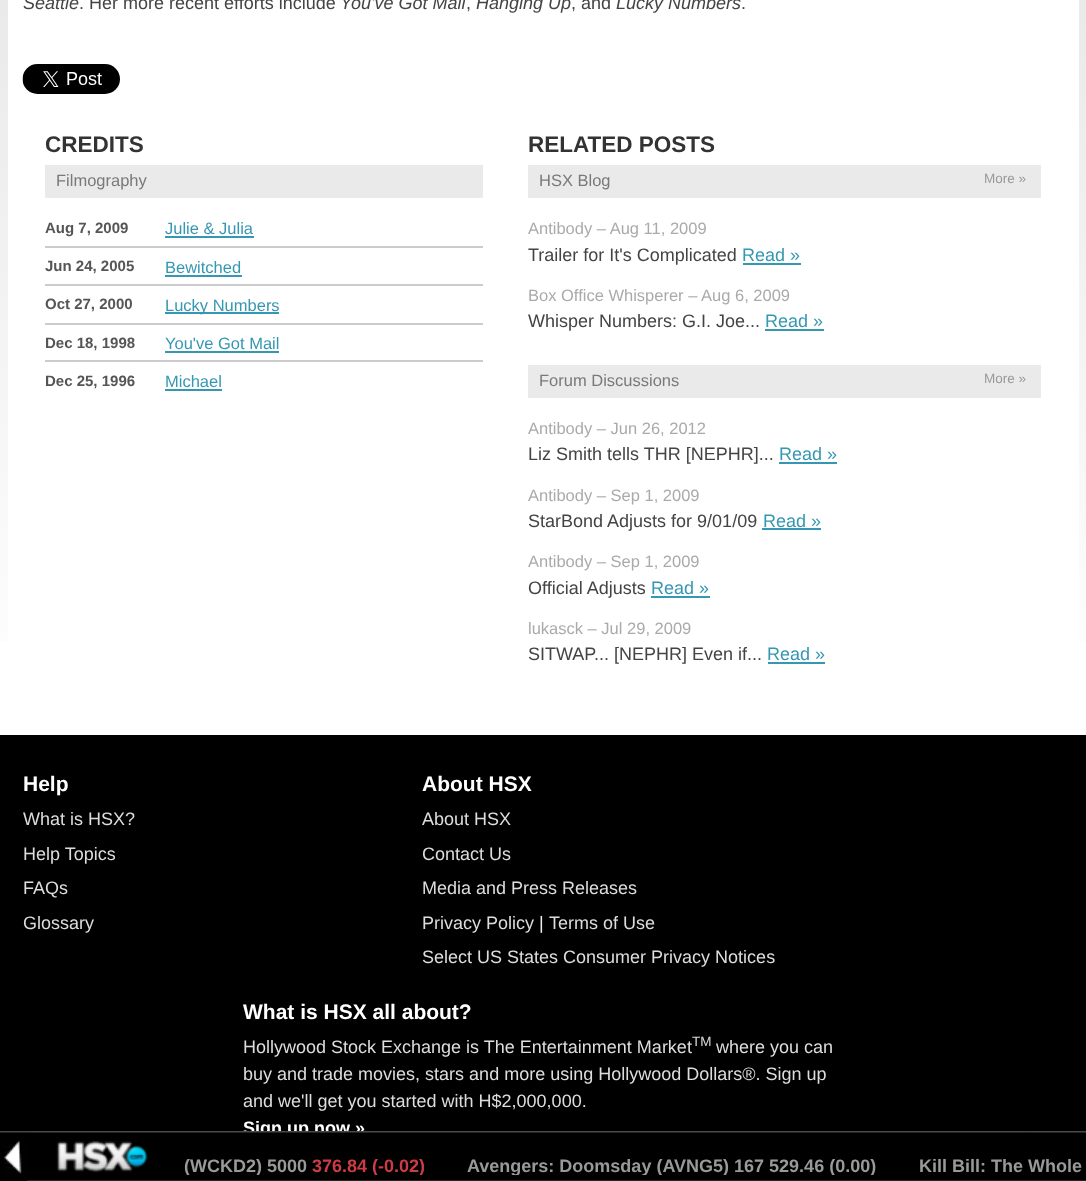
<svg xmlns="http://www.w3.org/2000/svg" width="1086" height="1181" viewBox="0 0 1086 1181">
  <defs>
    <linearGradient id="g1" gradientUnits="userSpaceOnUse" x1="543" y1="728" x2="543" y2="-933"><stop offset="0" stop-color="rgb(255,255,255)"/><stop offset="0.7" stop-color="rgb(221,221,221)"/><stop offset="1" stop-color="rgb(217,217,217)"/></linearGradient>
    <clipPath id="clip1"><rect x="177" y="1157" width="909" height="18"/></clipPath>
  </defs>
  <rect width="100%" height="100%" fill="rgb(255,255,255)"/>
  <rect x="0" y="0" width="1086" height="642" fill="url(#g1)"/>
  <rect x="8" y="-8" width="1071" height="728" rx="8" fill="rgb(255,255,255)"/>
  <text x="23" y="9" font-family="Liberation Sans" font-size="18" font-style="italic" fill="rgb(68,68,68)">Seattle</text>
  <text x="79" y="9" font-family="Liberation Sans" font-size="18" fill="rgb(68,68,68)">. Her more recent efforts include</text>
  <text x="340" y="9" font-family="Liberation Sans" font-size="18" font-style="italic" fill="rgb(68,68,68)">You've Got Mail</text>
  <text x="466" y="9" font-family="Liberation Sans" font-size="18" fill="rgb(68,68,68)">,</text>
  <text x="476" y="9" font-family="Liberation Sans" font-size="18" font-style="italic" fill="rgb(68,68,68)">Hanging Up</text>
  <text x="571" y="9" font-family="Liberation Sans" font-size="18" fill="rgb(68,68,68)">, and</text>
  <text x="616" y="9" font-family="Liberation Sans" font-size="18" font-style="italic" fill="rgb(68,68,68)">Lucky Numbers</text>
  <text x="741" y="9" font-family="Liberation Sans" font-size="18" fill="rgb(68,68,68)">.</text>
  <image x="22" y="64" width="98" height="30" href="pic1.png"/>
  <text x="45" y="152" font-family="Liberation Sans" font-size="22.5" font-weight="bold" fill="rgb(51,51,51)">CREDITS</text>
  <rect x="45" y="165" width="438" height="33" fill="rgb(234,234,234)"/>
  <text x="56" y="186" font-family="Liberation Sans" font-size="16.5" fill="rgb(121,121,121)">Filmography</text>
  <rect x="45" y="246" width="438" height="2" fill="rgb(204,204,204)"/>
  <text x="45" y="233" font-family="Liberation Sans" font-size="15" font-weight="bold" fill="rgb(85,85,85)">Aug 7, 2009</text>
  <text x="165" y="234" font-family="Liberation Sans" font-size="16.5" fill="rgb(53,151,178)">Julie &amp; Julia</text>
  <rect x="165" y="236" width="89" height="2" fill="rgb(53,151,178)"/>
  <rect x="45" y="284" width="438" height="2" fill="rgb(204,204,204)"/>
  <text x="45" y="271" font-family="Liberation Sans" font-size="15" font-weight="bold" fill="rgb(85,85,85)">Jun 24, 2005</text>
  <text x="165" y="273" font-family="Liberation Sans" font-size="16.5" fill="rgb(53,151,178)">Bewitched</text>
  <rect x="165" y="275" width="77" height="2" fill="rgb(53,151,178)"/>
  <rect x="45" y="323" width="438" height="2" fill="rgb(204,204,204)"/>
  <text x="45" y="309" font-family="Liberation Sans" font-size="15" font-weight="bold" fill="rgb(85,85,85)">Oct 27, 2000</text>
  <rect x="165" y="312" width="114" height="2" fill="rgb(53,151,178)"/>
  <text x="165" y="311" font-family="Liberation Sans" font-size="16.5" fill="rgb(53,151,178)">Lucky Numbers</text>
  <rect x="45" y="360" width="438" height="2" fill="rgb(204,204,204)"/>
  <text x="45" y="348" font-family="Liberation Sans" font-size="15" font-weight="bold" fill="rgb(85,85,85)">Dec 18, 1998</text>
  <text x="165" y="349" font-family="Liberation Sans" font-size="16.5" fill="rgb(53,151,178)">You've Got Mail</text>
  <rect x="165" y="351" width="114" height="2" fill="rgb(53,151,178)"/>
  <text x="45" y="386" font-family="Liberation Sans" font-size="15" font-weight="bold" fill="rgb(85,85,85)">Dec 25, 1996</text>
  <text x="165" y="387" font-family="Liberation Sans" font-size="16.5" fill="rgb(53,151,178)">Michael</text>
  <rect x="165" y="389" width="57" height="2" fill="rgb(53,151,178)"/>
  <text x="528" y="152" font-family="Liberation Sans" font-size="22.5" font-weight="bold" fill="rgb(51,51,51)">RELATED POSTS</text>
  <rect x="528" y="165" width="513" height="33" fill="rgb(234,234,234)"/>
  <text x="539" y="186" font-family="Liberation Sans" font-size="16.5" fill="rgb(121,121,121)">HSX Blog</text>
  <text x="984" y="183" font-family="Liberation Sans" font-size="13.5" fill="rgb(153,153,153)">More »</text>
  <text x="528" y="234" font-family="Liberation Sans" font-size="16.5" fill="rgb(170,170,170)">Antibody – Aug 11, 2009</text>
  <text x="528" y="261" font-family="Liberation Sans" font-size="18" fill="rgb(68,68,68)">Trailer for It's Complicated</text>
  <text x="742" y="261" font-family="Liberation Sans" font-size="18" fill="rgb(53,151,178)">Read »</text>
  <rect x="743" y="263" width="58" height="2" fill="rgb(53,151,178)"/>
  <text x="528" y="301" font-family="Liberation Sans" font-size="16.5" fill="rgb(170,170,170)">Box Office Whisperer – Aug 6, 2009</text>
  <text x="528" y="327" font-family="Liberation Sans" font-size="18" fill="rgb(68,68,68)">Whisper Numbers: G.I. Joe...</text>
  <text x="765" y="327" font-family="Liberation Sans" font-size="18" fill="rgb(53,151,178)">Read »</text>
  <rect x="765" y="329" width="59" height="2" fill="rgb(53,151,178)"/>
  <rect x="528" y="365" width="513" height="33" fill="rgb(234,234,234)"/>
  <text x="539" y="386" font-family="Liberation Sans" font-size="16.5" fill="rgb(121,121,121)">Forum Discussions</text>
  <text x="984" y="383" font-family="Liberation Sans" font-size="13.5" fill="rgb(153,153,153)">More »</text>
  <text x="528" y="434" font-family="Liberation Sans" font-size="16.5" fill="rgb(170,170,170)">Antibody – Jun 26, 2012</text>
  <text x="528" y="460" font-family="Liberation Sans" font-size="18" fill="rgb(68,68,68)">Liz Smith tells THR [NEPHR]...</text>
  <text x="779" y="460" font-family="Liberation Sans" font-size="18" fill="rgb(53,151,178)">Read »</text>
  <rect x="779" y="462" width="58" height="2" fill="rgb(53,151,178)"/>
  <text x="528" y="501" font-family="Liberation Sans" font-size="16.5" fill="rgb(170,170,170)">Antibody – Sep 1, 2009</text>
  <text x="528" y="527" font-family="Liberation Sans" font-size="18" fill="rgb(68,68,68)">StarBond Adjusts for 9/01/09</text>
  <text x="763" y="527" font-family="Liberation Sans" font-size="18" fill="rgb(53,151,178)">Read »</text>
  <rect x="762" y="528" width="59" height="2" fill="rgb(53,151,178)"/>
  <text x="528" y="567" font-family="Liberation Sans" font-size="16.5" fill="rgb(170,170,170)">Antibody – Sep 1, 2009</text>
  <text x="528" y="594" font-family="Liberation Sans" font-size="18" fill="rgb(68,68,68)">Official Adjusts</text>
  <text x="651" y="594" font-family="Liberation Sans" font-size="18" fill="rgb(53,151,178)">Read »</text>
  <rect x="651" y="596" width="59" height="2" fill="rgb(53,151,178)"/>
  <text x="528" y="634" font-family="Liberation Sans" font-size="16.5" fill="rgb(170,170,170)">lukasck – Jul 29, 2009</text>
  <text x="528" y="660" font-family="Liberation Sans" font-size="18" fill="rgb(68,68,68)">SITWAP... [NEPHR] Even if...</text>
  <text x="767" y="660" font-family="Liberation Sans" font-size="18" fill="rgb(53,151,178)">Read »</text>
  <rect x="768" y="662" width="57" height="2" fill="rgb(53,151,178)"/>
  <rect x="0" y="735" width="1086" height="396" fill="rgb(0,0,0)"/>
  <text x="23" y="791" font-family="Liberation Sans" font-size="21" font-weight="bold" fill="rgb(255,255,255)">Help</text>
  <g font-family="Liberation Sans" font-size="18" fill="rgb(221,221,221)">
    <text>
      <tspan x="23" y="825">What is HSX?</tspan>
      <tspan x="23" y="860">Help Topics</tspan>
      <tspan x="23" y="894">FAQs</tspan>
      <tspan x="23" y="929">Glossary</tspan>
    </text>
  </g>
  <text x="422" y="791" font-family="Liberation Sans" font-size="21" font-weight="bold" fill="rgb(255,255,255)">About HSX</text>
  <g font-family="Liberation Sans" font-size="18" fill="rgb(221,221,221)">
    <text>
      <tspan x="422" y="825">About HSX</tspan>
      <tspan x="422" y="860">Contact Us</tspan>
      <tspan x="422" y="894">Media and Press Releases</tspan>
      <tspan x="422" y="929">Privacy Policy</tspan>
    </text>
  </g>
  <text x="539" y="929" font-family="Liberation Sans" font-size="18" fill="rgb(238,238,238)">|</text>
  <g font-family="Liberation Sans" font-size="18" fill="rgb(221,221,221)">
    <text x="549" y="929">Terms of Use</text>
    <text x="422" y="963">Select US States Consumer Privacy Notices</text>
  </g>
  <text x="243" y="1019" font-family="Liberation Sans" font-size="21" font-weight="bold" fill="rgb(255,255,255)">What is HSX all about?</text>
  <text x="243" y="1053" font-family="Liberation Sans" font-size="18" fill="rgb(221,221,221)">Hollywood Stock Exchange is The Entertainment Market</text>
  <text x="692" y="1046" font-family="Liberation Sans" font-size="13.5" fill="rgb(221,221,221)">TM</text>
  <g font-family="Liberation Sans" font-size="18" fill="rgb(221,221,221)">
    <text x="716" y="1053">where you can</text>
    <text>
      <tspan x="243" y="1080">buy and trade movies, stars and more using Hollywood Dollars®. Sign up</tspan>
      <tspan x="243" y="1107">and we'll get you started with H$2,000,000.</tspan>
    </text>
  </g>
  <text x="243" y="1134" font-family="Liberation Sans" font-size="18" font-weight="bold" fill="rgb(255,255,255)">Sign up now »</text>
  <image x="0" y="1131" width="1086" height="50" href="pic2.png"/>
  <image x="0" y="1141" width="27" height="40" href="pic3.png"/>
  <g clip-path="url(#clip1)">
    <text x="184" y="1172" font-family="Liberation Sans" font-size="18" font-weight="bold" fill="rgb(153,153,153)">(WCKD2) 5000</text>
    <text x="312" y="1172" font-family="Liberation Sans" font-size="18" font-weight="bold" fill="rgb(204,61,67)">376.84 (-0.02)</text>
    <text x="467" y="1172" font-family="Liberation Sans" font-size="18" font-weight="bold" fill="rgb(153,153,153)">Avengers: Doomsday (AVNG5) 167 529.46 (0.00)</text>
  </g>
  <text x="919" y="1172" font-family="Liberation Sans" font-size="18" font-weight="bold" fill="rgb(153,153,153)">Kill Bill: The Whole</text>
</svg>
